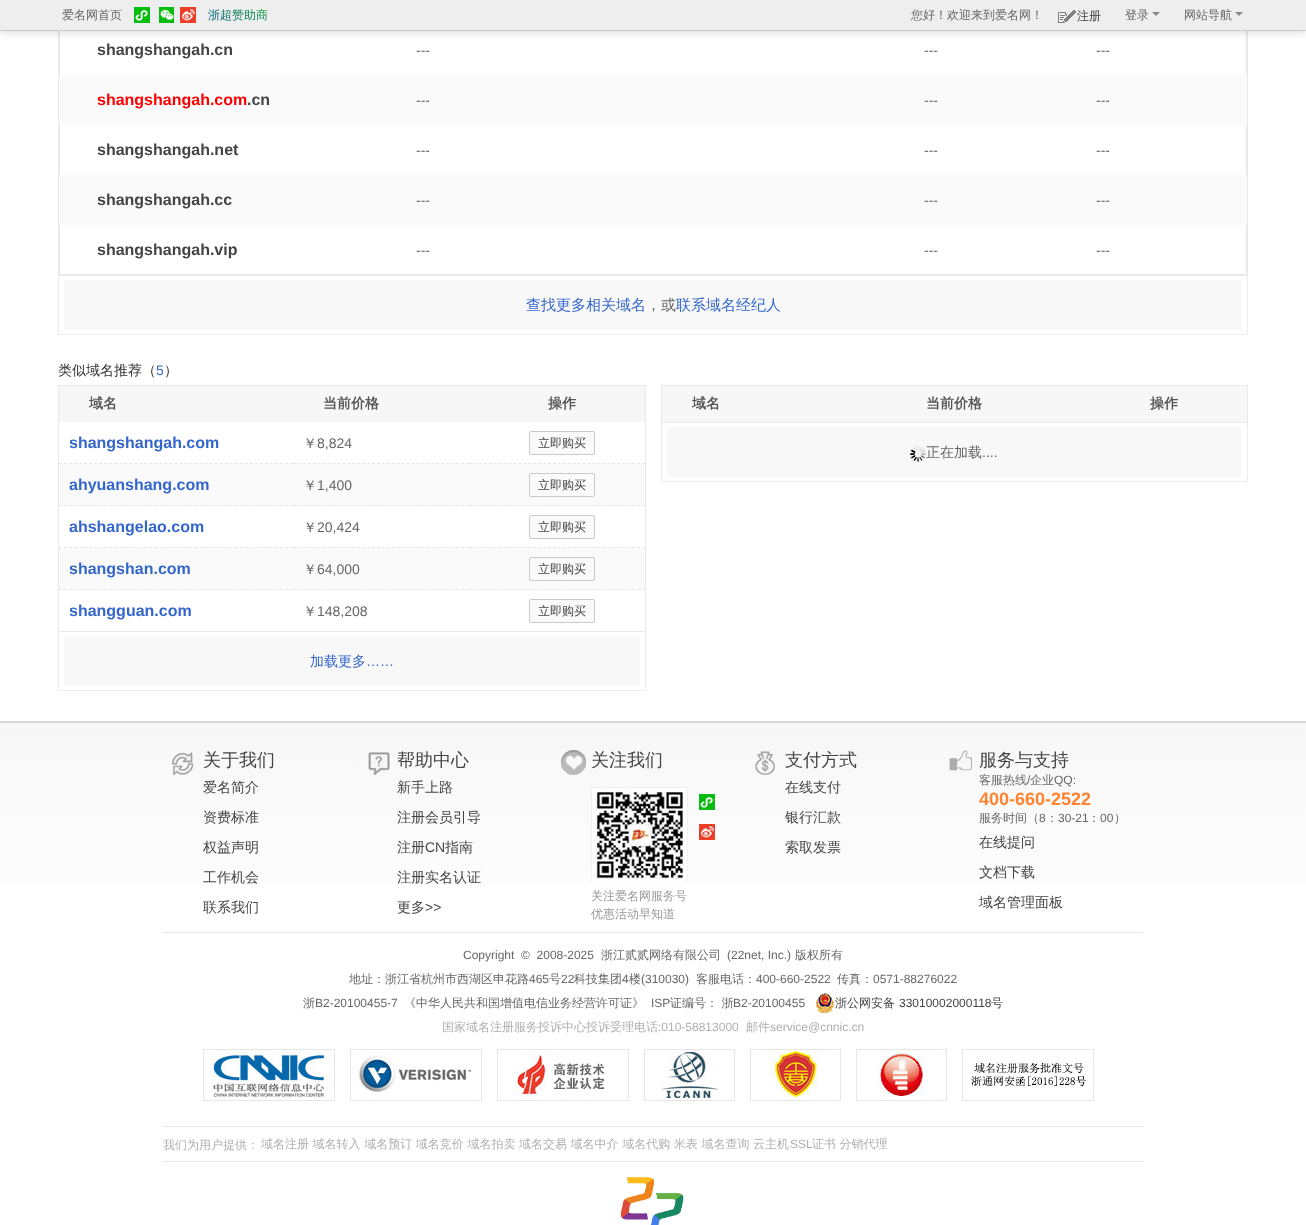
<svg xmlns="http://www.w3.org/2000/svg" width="1306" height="1225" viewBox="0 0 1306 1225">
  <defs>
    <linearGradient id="g1" gradientUnits="userSpaceOnUse" x1="226" y1="34" x2="250" y2="-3.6"><stop offset="0" stop-color="rgb(3,85,143)"/><stop offset="1" stop-color="rgb(13,159,48)"/></linearGradient>
    <linearGradient id="g2" gradientUnits="userSpaceOnUse" x1="0" y1="723" x2="0" y2="959"><stop offset="0" stop-color="rgb(247,247,247)"/><stop offset="1" stop-color="rgb(255,255,255)"/></linearGradient>
  </defs>
  <rect width="100%" height="100%" fill="rgb(255,255,255)"/>
  <rect x="58.5" y="-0.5" width="1189" height="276" fill="none" stroke="rgb(233,233,233)"/>
  <rect x="59.5" y="25.5" width="1187" height="249" fill="none" stroke="rgb(232,232,232)"/>
  <rect x="0" y="0" width="1306" height="31" fill="rgba(0,0,0,0.2)" filter="blur(5px)"/>
  <rect x="0" y="0" width="1306" height="30" fill="rgb(238,238,238)"/>
  <rect x="0" y="30" width="1306" height="1" fill="rgb(204,204,204)"/>
  <text x="62" y="19" font-family="WenQuanYi Zen Hei" font-size="12" font-weight="500" fill="rgb(102,102,102)">爱名网首页</text>
  <image x="134" y="7" width="16" height="16" href="pic1.png"/>
  <image x="159" y="7" width="15" height="16" href="pic2.png"/>
  <image x="180" y="7" width="16" height="16" href="pic3.png"/>
  <text x="208" y="19" font-family="WenQuanYi Zen Hei" font-size="12" font-weight="500" fill="url(#g1)">浙超赞助商</text>
  <text x="911" y="19" font-family="WenQuanYi Zen Hei" font-size="12" font-weight="500" fill="rgb(102,102,102)">您好！欢迎来到爱名网！</text>
  <image x="1058" y="10" width="18" height="13" href="pic4.png"/>
  <text x="1077" y="20" font-family="WenQuanYi Zen Hei" font-size="12" font-weight="500" fill="rgb(68,68,68)">注册</text>
  <text x="1125" y="19" font-family="WenQuanYi Zen Hei" font-size="12" font-weight="500" fill="rgb(102,102,102)">登录</text>
  <path d="M1152 12H1160L1156 16Z" fill="rgb(137,137,137)"/>
  <text x="1184" y="19" font-family="WenQuanYi Zen Hei" font-size="12" font-weight="500" fill="rgb(102,102,102)">网站导航</text>
  <path d="M1235 12H1243L1239 16Z" fill="rgb(137,137,137)"/>
  <text x="97" y="55" font-family="Liberation Sans" font-size="16" font-weight="bold" fill="rgb(68,68,68)">shangshangah.cn</text>
  <g font-family="Liberation Sans" font-size="14" fill="rgb(102,102,102)">
    <text x="416" y="55">---</text>
    <text x="924" y="55">---</text>
    <text x="1096" y="55">---</text>
  </g>
  <rect x="59" y="75" width="1188" height="50" fill="rgb(250,250,250)"/>
  <text x="97" y="105" font-family="Liberation Sans" font-size="16" font-weight="bold" fill="rgb(255,0,0)">shangshangah.com</text>
  <text x="247" y="105" font-family="Liberation Sans" font-size="16" font-weight="bold" fill="rgb(68,68,68)">.cn</text>
  <g font-family="Liberation Sans" font-size="14" fill="rgb(102,102,102)">
    <text x="416" y="105">---</text>
    <text x="924" y="105">---</text>
    <text x="1096" y="105">---</text>
  </g>
  <text x="97" y="155" font-family="Liberation Sans" font-size="16" font-weight="bold" fill="rgb(68,68,68)">shangshangah.net</text>
  <g font-family="Liberation Sans" font-size="14" fill="rgb(102,102,102)">
    <text x="416" y="155">---</text>
    <text x="924" y="155">---</text>
    <text x="1096" y="155">---</text>
  </g>
  <rect x="59" y="175" width="1188" height="50" fill="rgb(250,250,250)"/>
  <text x="97" y="205" font-family="Liberation Sans" font-size="16" font-weight="bold" fill="rgb(68,68,68)">shangshangah.cc</text>
  <g font-family="Liberation Sans" font-size="14" fill="rgb(102,102,102)">
    <text x="416" y="205">---</text>
    <text x="924" y="205">---</text>
    <text x="1096" y="205">---</text>
  </g>
  <text x="97" y="255" font-family="Liberation Sans" font-size="16" font-weight="bold" fill="rgb(68,68,68)">shangshangah.vip</text>
  <g font-family="Liberation Sans" font-size="14" fill="rgb(102,102,102)">
    <text x="416" y="255">---</text>
    <text x="924" y="255">---</text>
    <text x="1096" y="255">---</text>
  </g>
  <rect x="1247" y="276" width="1" height="59" fill="rgb(237,237,237)"/>
  <rect x="58" y="334" width="1190" height="1" fill="rgb(237,237,237)"/>
  <rect x="58" y="276" width="1" height="59" fill="rgb(237,237,237)"/>
  <rect x="64" y="280" width="1178" height="50" fill="rgb(248,248,248)"/>
  <text x="526" y="310" font-family="WenQuanYi Zen Hei" font-size="15" font-weight="500" fill="rgb(51,102,204)">查找更多相关域名</text>
  <text x="646" y="310" font-family="WenQuanYi Zen Hei" font-size="15" font-weight="500" fill="rgb(102,102,102)">，或</text>
  <text x="676" y="310" font-family="WenQuanYi Zen Hei" font-size="15" font-weight="500" fill="rgb(51,102,204)">联系域名经纪人</text>
  <text x="58" y="375" font-family="WenQuanYi Zen Hei" font-size="14" font-weight="500" fill="rgb(51,51,51)">类似域名推荐（</text>
  <text x="156" y="375" font-family="Liberation Sans" font-size="14" fill="rgb(51,102,204)">5</text>
  <text x="164" y="375" font-family="WenQuanYi Zen Hei" font-size="14" font-weight="500" fill="rgb(51,51,51)">）</text>
  <rect x="58.5" y="385.5" width="587" height="246" fill="none" stroke="rgb(233,233,233)"/>
  <rect x="59" y="386" width="586" height="35" fill="rgb(247,247,247)"/>
  <rect x="59" y="421" width="586" height="1" fill="rgb(245,245,245)"/>
  <g font-family="WenQuanYi Zen Hei" font-size="14" font-weight="bold" fill="rgb(85,85,85)">
    <text x="89" y="408">域名</text>
    <text x="323" y="408">当前价格</text>
    <text x="548" y="408">操作</text>
  </g>
  <path d="M59 463.5H293" fill="none" stroke="rgb(229,229,229)" stroke-dasharray="3 2.02"/>
  <text x="69" y="448" font-family="Liberation Sans" font-size="16" font-weight="bold" fill="rgb(51,102,204)">shangshangah.com</text>
  <path d="M293 463.5H469" fill="none" stroke="rgb(229,229,229)" stroke-dasharray="3 1.94"/>
  <text x="303" y="448" font-family="WenQuanYi Zen Hei" font-size="14" font-weight="500" fill="rgb(102,102,102)">￥</text>
  <text x="317" y="448" font-family="Liberation Sans" font-size="14" fill="rgb(102,102,102)">8,824</text>
  <path d="M469 463.5H645" fill="none" stroke="rgb(229,229,229)" stroke-dasharray="3 1.94"/>
  <rect x="529.5" y="431.5" width="65" height="23" rx="1.5" fill="rgb(250,250,250)" stroke="rgb(202,202,202)"/>
  <text x="538" y="447" font-family="WenQuanYi Zen Hei" font-size="12" font-weight="500" fill="rgb(68,68,68)">立即购买</text>
  <rect x="59" y="464" width="586" height="42" fill="rgb(250,250,250)"/>
  <path d="M59 505.5H293" fill="none" stroke="rgb(229,229,229)" stroke-dasharray="3 2.02"/>
  <text x="69" y="490" font-family="Liberation Sans" font-size="16" font-weight="bold" fill="rgb(51,102,204)">ahyuanshang.com</text>
  <path d="M293 505.5H469" fill="none" stroke="rgb(229,229,229)" stroke-dasharray="3 1.94"/>
  <text x="303" y="490" font-family="WenQuanYi Zen Hei" font-size="14" font-weight="500" fill="rgb(102,102,102)">￥</text>
  <text x="317" y="490" font-family="Liberation Sans" font-size="14" fill="rgb(102,102,102)">1,400</text>
  <path d="M469 505.5H645" fill="none" stroke="rgb(229,229,229)" stroke-dasharray="3 1.94"/>
  <rect x="529.5" y="473.5" width="65" height="23" rx="1.5" fill="none" stroke="rgb(202,202,202)"/>
  <text x="538" y="489" font-family="WenQuanYi Zen Hei" font-size="12" font-weight="500" fill="rgb(68,68,68)">立即购买</text>
  <path d="M59 547.5H293" fill="none" stroke="rgb(229,229,229)" stroke-dasharray="3 2.02"/>
  <text x="69" y="532" font-family="Liberation Sans" font-size="16" font-weight="bold" fill="rgb(51,102,204)">ahshangelao.com</text>
  <path d="M293 547.5H469" fill="none" stroke="rgb(229,229,229)" stroke-dasharray="3 1.94"/>
  <text x="303" y="532" font-family="WenQuanYi Zen Hei" font-size="14" font-weight="500" fill="rgb(102,102,102)">￥</text>
  <text x="317" y="532" font-family="Liberation Sans" font-size="14" fill="rgb(102,102,102)">20,424</text>
  <path d="M469 547.5H645" fill="none" stroke="rgb(229,229,229)" stroke-dasharray="3 1.94"/>
  <rect x="529.5" y="515.5" width="65" height="23" rx="1.5" fill="rgb(250,250,250)" stroke="rgb(202,202,202)"/>
  <text x="538" y="531" font-family="WenQuanYi Zen Hei" font-size="12" font-weight="500" fill="rgb(68,68,68)">立即购买</text>
  <rect x="59" y="548" width="586" height="42" fill="rgb(250,250,250)"/>
  <path d="M59 589.5H293" fill="none" stroke="rgb(229,229,229)" stroke-dasharray="3 2.02"/>
  <text x="69" y="574" font-family="Liberation Sans" font-size="16" font-weight="bold" fill="rgb(51,102,204)">shangshan.com</text>
  <path d="M293 589.5H469" fill="none" stroke="rgb(229,229,229)" stroke-dasharray="3 1.94"/>
  <text x="303" y="574" font-family="WenQuanYi Zen Hei" font-size="14" font-weight="500" fill="rgb(102,102,102)">￥</text>
  <text x="317" y="574" font-family="Liberation Sans" font-size="14" fill="rgb(102,102,102)">64,000</text>
  <path d="M469 589.5H645" fill="none" stroke="rgb(229,229,229)" stroke-dasharray="3 1.94"/>
  <rect x="529.5" y="557.5" width="65" height="23" rx="1.5" fill="none" stroke="rgb(202,202,202)"/>
  <text x="538" y="573" font-family="WenQuanYi Zen Hei" font-size="12" font-weight="500" fill="rgb(68,68,68)">立即购买</text>
  <text x="69" y="616" font-family="Liberation Sans" font-size="16" font-weight="bold" fill="rgb(51,102,204)">shangguan.com</text>
  <text x="303" y="616" font-family="WenQuanYi Zen Hei" font-size="14" font-weight="500" fill="rgb(102,102,102)">￥</text>
  <text x="317" y="616" font-family="Liberation Sans" font-size="14" fill="rgb(102,102,102)">148,208</text>
  <rect x="529.5" y="599.5" width="65" height="23" rx="1.5" fill="rgb(250,250,250)" stroke="rgb(202,202,202)"/>
  <text x="538" y="615" font-family="WenQuanYi Zen Hei" font-size="12" font-weight="500" fill="rgb(68,68,68)">立即购买</text>
  <rect x="645" y="632" width="1" height="59" fill="rgb(237,237,237)"/>
  <rect x="58" y="690" width="588" height="1" fill="rgb(237,237,237)"/>
  <rect x="58" y="632" width="1" height="59" fill="rgb(237,237,237)"/>
  <rect x="64" y="636" width="576" height="50" fill="rgb(248,248,248)"/>
  <text x="310" y="666" font-family="WenQuanYi Zen Hei" font-size="14" font-weight="500" fill="rgb(51,102,204)">加载更多</text>
  <text x="366" y="666" font-family="Liberation Sans" font-size="14" fill="rgb(51,102,204)">……</text>
  <rect x="661.5" y="385.5" width="586" height="37" fill="none" stroke="rgb(233,233,233)"/>
  <rect x="662" y="386" width="585" height="35" fill="rgb(247,247,247)"/>
  <rect x="662" y="421" width="585" height="1" fill="rgb(245,245,245)"/>
  <g font-family="WenQuanYi Zen Hei" font-size="14" font-weight="bold" fill="rgb(85,85,85)">
    <text x="692" y="408">域名</text>
    <text x="926" y="408">当前价格</text>
    <text x="1150" y="408">操作</text>
  </g>
  <rect x="1247" y="423" width="1" height="59" fill="rgb(237,237,237)"/>
  <rect x="661" y="481" width="587" height="1" fill="rgb(237,237,237)"/>
  <rect x="661" y="423" width="1" height="59" fill="rgb(237,237,237)"/>
  <rect x="667" y="427" width="575" height="50" fill="rgb(248,248,248)"/>
  <image x="910" y="446" width="16" height="16" href="pic5.png"/>
  <text x="926" y="457" font-family="WenQuanYi Zen Hei" font-size="14" font-weight="500" fill="rgb(102,102,102)">正在加载</text>
  <text x="982" y="457" font-family="Liberation Sans" font-size="14" fill="rgb(102,102,102)">....</text>
  <rect x="0" y="723" width="1306" height="162" fill="url(#g2)"/>
  <rect x="0" y="721" width="1306" height="2" fill="rgb(216,216,216)"/>
  <image x="172" y="752" width="22" height="23" href="pic6.png"/>
  <text x="203" y="766" font-family="WenQuanYi Zen Hei" font-size="18" font-weight="500" fill="rgb(68,68,68)">关于我们</text>
  <g font-family="WenQuanYi Zen Hei" font-size="14" font-weight="500" fill="rgb(68,68,68)">
    <text x="203" y="792">爱名简介</text>
    <text x="203" y="822">资费标准</text>
    <text x="203" y="852">权益声明</text>
    <text x="203" y="882">工作机会</text>
    <text x="203" y="912">联系我们</text>
  </g>
  <image x="357" y="752" width="33" height="23" href="pic7.png"/>
  <text x="397" y="766" font-family="WenQuanYi Zen Hei" font-size="18" font-weight="500" fill="rgb(68,68,68)">帮助中心</text>
  <g font-family="WenQuanYi Zen Hei" font-size="14" font-weight="500" fill="rgb(68,68,68)">
    <text x="397" y="792">新手上路</text>
    <text x="397" y="822">注册会员引导</text>
    <text x="397" y="852">注册</text>
  </g>
  <text x="425" y="852" font-family="Liberation Sans" font-size="14" fill="rgb(68,68,68)">CN</text>
  <g font-family="WenQuanYi Zen Hei" font-size="14" font-weight="500" fill="rgb(68,68,68)">
    <text x="445" y="852">指南</text>
    <text x="397" y="882">注册实名认证</text>
    <text x="397" y="912">更多</text>
  </g>
  <text x="425" y="912" font-family="Liberation Sans" font-size="14" fill="rgb(68,68,68)">&gt;&gt;</text>
  <image x="561" y="750" width="25" height="25" href="pic8.png"/>
  <text x="591" y="766" font-family="WenQuanYi Zen Hei" font-size="18" font-weight="500" fill="rgb(68,68,68)">关注我们</text>
  <image x="591" y="787" width="97" height="95" href="pic9.png"/>
  <image x="699" y="794" width="16" height="16" href="pic1.png"/>
  <image x="699" y="824" width="16" height="16" href="pic3.png"/>
  <g font-family="WenQuanYi Zen Hei" font-size="12" font-weight="500" fill="rgb(153,153,153)">
    <text>
      <tspan x="591" y="900">关注爱名网服务号</tspan>
      <tspan x="591" y="918">优惠活动早知道</tspan>
    </text>
  </g>
  <image x="755" y="751" width="20" height="24" href="pic10.png"/>
  <text x="785" y="766" font-family="WenQuanYi Zen Hei" font-size="18" font-weight="500" fill="rgb(68,68,68)">支付方式</text>
  <g font-family="WenQuanYi Zen Hei" font-size="14" font-weight="500" fill="rgb(68,68,68)">
    <text x="785" y="792">在线支付</text>
    <text x="785" y="822">银行汇款</text>
    <text x="785" y="852">索取发票</text>
  </g>
  <image x="949" y="750" width="23" height="21" href="pic11.png"/>
  <text x="979" y="766" font-family="WenQuanYi Zen Hei" font-size="18" font-weight="500" fill="rgb(68,68,68)">服务与支持</text>
  <text x="979" y="784" font-family="WenQuanYi Zen Hei" font-size="12" font-weight="500" fill="rgb(102,102,102)">客服热线</text>
  <text x="1027" y="784" font-family="Liberation Sans" font-size="12" fill="rgb(102,102,102)">/</text>
  <text x="1030" y="784" font-family="WenQuanYi Zen Hei" font-size="12" font-weight="500" fill="rgb(102,102,102)">企业</text>
  <text x="1054" y="784" font-family="Liberation Sans" font-size="12" fill="rgb(102,102,102)">QQ:</text>
  <text x="979" y="805" font-family="Liberation Sans" font-size="18" font-weight="bold" fill="rgb(254,132,49)">400-660-2522</text>
  <text x="979" y="822" font-family="WenQuanYi Zen Hei" font-size="12" font-weight="500" fill="rgb(102,102,102)">服务时间（</text>
  <text x="1039" y="822" font-family="Liberation Sans" font-size="12" fill="rgb(102,102,102)">8</text>
  <text x="1046" y="822" font-family="WenQuanYi Zen Hei" font-size="12" font-weight="500" fill="rgb(102,102,102)">：</text>
  <text x="1058" y="822" font-family="Liberation Sans" font-size="12" fill="rgb(102,102,102)">30-21</text>
  <text x="1088" y="822" font-family="WenQuanYi Zen Hei" font-size="12" font-weight="500" fill="rgb(102,102,102)">：</text>
  <text x="1100" y="822" font-family="Liberation Sans" font-size="12" fill="rgb(102,102,102)">00</text>
  <text x="1114" y="822" font-family="WenQuanYi Zen Hei" font-size="12" font-weight="500" fill="rgb(102,102,102)">）</text>
  <g font-family="WenQuanYi Zen Hei" font-size="14" font-weight="500" fill="rgb(68,68,68)">
    <text x="979" y="847">在线提问</text>
    <text x="979" y="877">文档下载</text>
    <text x="979" y="907">域名管理面板</text>
  </g>
  <rect x="163" y="932" width="980" height="1" fill="rgb(229,229,229)"/>
  <text x="463" y="959" font-family="Liberation Sans" font-size="12" fill="rgb(102,102,102)" xml:space="preserve">Copyright  ©  2008-2025</text>
  <text x="601" y="959" font-family="WenQuanYi Zen Hei" font-size="12" font-weight="500" fill="rgb(102,102,102)">浙江贰贰网络有限公司</text>
  <text x="727" y="959" font-family="Liberation Sans" font-size="12" fill="rgb(102,102,102)">(22net, Inc.)</text>
  <g font-family="WenQuanYi Zen Hei" font-size="12" font-weight="500" fill="rgb(102,102,102)">
    <text x="795" y="959">版权所有</text>
    <text x="349" y="983">地址：浙江省杭州市西湖区申花路</text>
  </g>
  <text x="529" y="983" font-family="Liberation Sans" font-size="12" fill="rgb(102,102,102)">465</text>
  <text x="549" y="983" font-family="WenQuanYi Zen Hei" font-size="12" font-weight="500" fill="rgb(102,102,102)">号</text>
  <text x="561" y="983" font-family="Liberation Sans" font-size="12" fill="rgb(102,102,102)">22</text>
  <text x="574" y="983" font-family="WenQuanYi Zen Hei" font-size="12" font-weight="500" fill="rgb(102,102,102)">科技集团</text>
  <text x="622" y="983" font-family="Liberation Sans" font-size="12" fill="rgb(102,102,102)">4</text>
  <text x="629" y="983" font-family="WenQuanYi Zen Hei" font-size="12" font-weight="500" fill="rgb(102,102,102)">楼</text>
  <text x="641" y="983" font-family="Liberation Sans" font-size="12" fill="rgb(102,102,102)">(310030)</text>
  <text x="696" y="983" font-family="WenQuanYi Zen Hei" font-size="12" font-weight="500" fill="rgb(102,102,102)">客服电话：</text>
  <text x="756" y="983" font-family="Liberation Sans" font-size="12" fill="rgb(102,102,102)">400-660-2522</text>
  <text x="837" y="983" font-family="WenQuanYi Zen Hei" font-size="12" font-weight="500" fill="rgb(102,102,102)">传真：</text>
  <text x="873" y="983" font-family="Liberation Sans" font-size="12" fill="rgb(102,102,102)">0571-88276022</text>
  <text x="303" y="1007" font-family="WenQuanYi Zen Hei" font-size="12" font-weight="500" fill="rgb(102,102,102)">浙</text>
  <text x="315" y="1007" font-family="Liberation Sans" font-size="12" fill="rgb(102,102,102)">B2-20100455-7</text>
  <text x="404" y="1007" font-family="WenQuanYi Zen Hei" font-size="12" font-weight="500" fill="rgb(102,102,102)">《中华人民共和国增值电信业务经营许可证》</text>
  <text x="651" y="1007" font-family="Liberation Sans" font-size="12" fill="rgb(102,102,102)">ISP</text>
  <text x="670" y="1007" font-family="WenQuanYi Zen Hei" font-size="12" font-weight="500" fill="rgb(102,102,102)">证编号： 浙</text>
  <text x="733" y="1007" font-family="Liberation Sans" font-size="12" fill="rgb(102,102,102)">B2-20100455</text>
  <image x="816" y="993" width="18" height="20" href="pic12.png"/>
  <text x="835" y="1007" font-family="WenQuanYi Zen Hei" font-size="12" font-weight="500" fill="rgb(68,68,68)">浙公网安备</text>
  <text x="899" y="1007" font-family="Liberation Sans" font-size="12" fill="rgb(68,68,68)">33010002000118</text>
  <text x="991" y="1007" font-family="WenQuanYi Zen Hei" font-size="12" font-weight="500" fill="rgb(68,68,68)">号</text>
  <text x="442" y="1031" font-family="WenQuanYi Zen Hei" font-size="12" font-weight="500" fill="rgb(175,175,175)">国家域名注册服务投诉中心投诉受理电话</text>
  <text x="658" y="1031" font-family="Liberation Sans" font-size="12" fill="rgb(175,175,175)">:010-58813000</text>
  <text x="746" y="1031" font-family="WenQuanYi Zen Hei" font-size="12" font-weight="500" fill="rgb(175,175,175)">邮件</text>
  <text x="770" y="1031" font-family="Liberation Sans" font-size="12" fill="rgb(175,175,175)">service@cnnic.cn</text>
  <image x="203" y="1049" width="132" height="52" href="pic13.png"/>
  <image x="350" y="1049" width="132" height="52" href="pic14.png"/>
  <image x="497" y="1049" width="132" height="52" href="pic15.png"/>
  <image x="644" y="1049" width="107" height="52" href="pic16.png"/>
  <image x="751" y="1049" width="107" height="52" href="pic17.png"/>
  <image x="858" y="1049" width="107" height="52" href="pic18.png"/>
  <image x="965" y="1049" width="129" height="52" href="pic19.png"/>
  <rect x="163" y="1126" width="980" height="1" fill="rgb(230,230,230)"/>
  <rect x="163" y="1161" width="980" height="1" fill="rgb(230,230,230)"/>
  <g font-family="WenQuanYi Zen Hei" font-size="12" font-weight="500" fill="rgb(175,175,175)">
    <text x="163" y="1149">我们为用户提供：</text>
    <text x="261" y="1148">域名注册 域名转入 域名预订 域名竞价 域名拍卖 域名交易 域名中介 域名代购 米表 域名查询 云主机</text>
  </g>
  <text x="790" y="1148" font-family="Liberation Sans" font-size="12" fill="rgb(175,175,175)">SSL</text>
  <text x="812" y="1148" font-family="WenQuanYi Zen Hei" font-size="12" font-weight="500" fill="rgb(175,175,175)">证书 分销代理</text>
  <image x="620" y="1177" width="64" height="48" href="pic20.png"/>
</svg>
